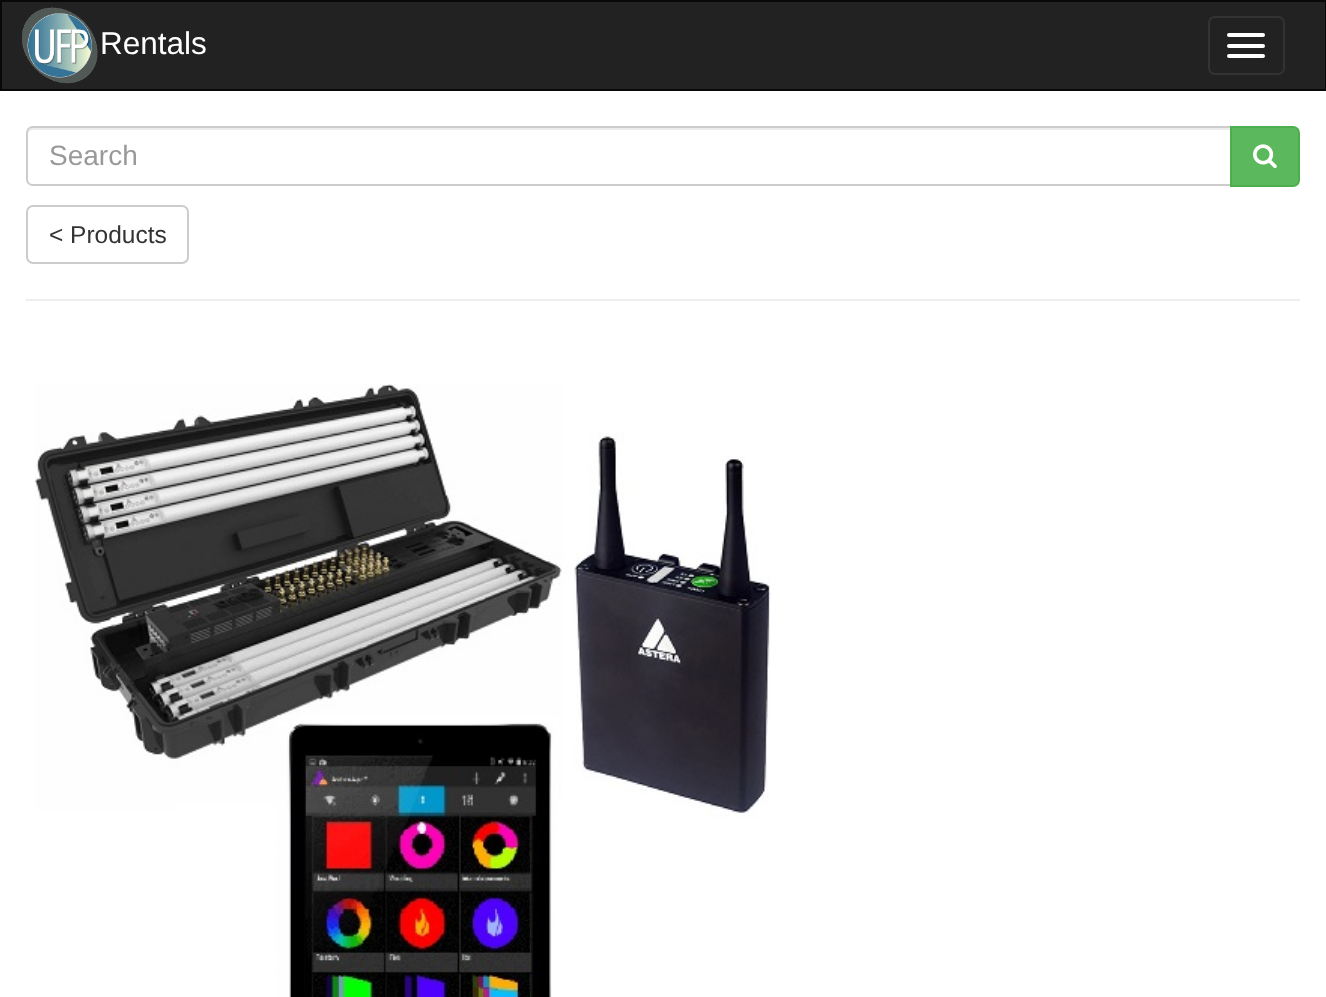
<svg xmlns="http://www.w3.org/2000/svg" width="1326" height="997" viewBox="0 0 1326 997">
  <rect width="100%" height="100%" fill="rgb(255,255,255)"/>
  <rect x="1" y="1" width="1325" height="89" fill="rgb(34,34,34)" stroke="rgb(8,8,8)" stroke-width="2"/>
  <image x="22" y="7" width="76" height="77" href="pic1.png"/>
  <text x="100" y="54" font-family="Liberation Sans" font-size="31.5" fill="rgb(255,255,255)">Rentals</text>
  <rect x="1209" y="17" width="75" height="57" rx="6" fill="none" stroke="rgb(51,51,51)" stroke-width="2"/>
  <rect x="1227" y="33" width="38" height="4" rx="2" fill="rgb(255,255,255)"/>
  <rect x="1227" y="44" width="38" height="4" rx="2" fill="rgb(255,255,255)"/>
  <rect x="1227" y="54" width="38" height="4" rx="2" fill="rgb(255,255,255)"/>
  <path d="M33 130H1230V128H33C30 128 28 130 28 133V135C28 132 30 130 33 130Z" fill="rgb(236,236,236)"/>
  <path d="M33 127H1231V185H33C29.5 185 27 182.5 27 179V133C27 129.5 29.5 127 33 127Z" fill="none" stroke="rgb(204,204,204)" stroke-width="2"/>
  <text x="49" y="165" font-family="Liberation Sans" font-size="28" fill="rgb(153,153,153)">Search</text>
  <path d="M1231 127H1293C1296.5 127 1299 129.5 1299 133V180C1299 183.5 1296.5 186 1293 186H1231Z" fill="rgb(92,184,92)" stroke="rgb(76,174,76)" stroke-width="2"/>
  <image x="1253" y="144" width="24" height="25" href="pic2.png"/>
  <rect x="27" y="206" width="161" height="57" rx="6" fill="none" stroke="rgb(204,204,204)" stroke-width="2"/>
  <text x="49" y="243" font-family="Liberation Sans" font-size="24.5" fill="rgb(51,51,51)">&lt; Products</text>
  <rect x="26" y="299" width="1274" height="2" fill="rgb(238,238,238)"/>
  <image x="35" y="384" width="736" height="613" href="pic3.png"/>
</svg>
